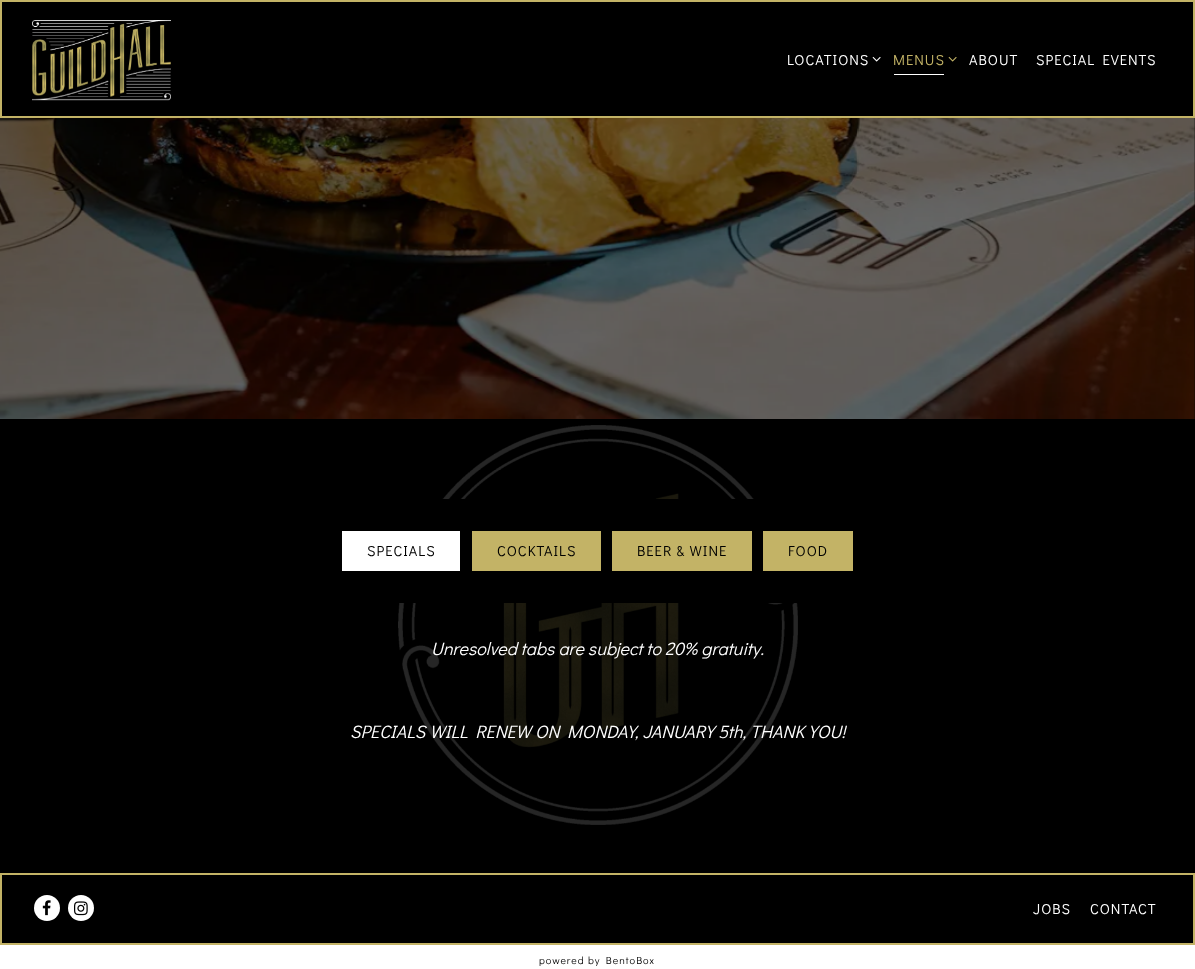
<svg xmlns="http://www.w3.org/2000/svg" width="1195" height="969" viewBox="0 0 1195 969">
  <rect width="100%" height="100%" fill="rgb(0,0,0)"/>
  <image x="398" y="425" width="400" height="400" href="pic1.png"/>
  <rect x="1" y="1" width="1193" height="116" fill="none" stroke="rgb(195,179,102)" stroke-width="2"/>
  <image x="32" y="20" width="139" height="81" href="pic2.png"/>
  <text x="787" y="65" font-family="Didact Gothic" font-size="14.5" letter-spacing="1" fill="rgb(255,255,255)">LOCATIONS</text>
  <image x="872" y="56" width="9" height="6" href="pic3.png"/>
  <text x="893" y="65" font-family="Didact Gothic" font-size="14.5" letter-spacing="1" fill="rgb(195,179,102)">MENUS</text>
  <image x="948" y="56" width="9" height="6" href="pic4.png"/>
  <rect x="894" y="74" width="50" height="1" fill="rgb(255,255,255)"/>
  <g font-family="Didact Gothic" font-size="14.5" letter-spacing="1" fill="rgb(255,255,255)">
    <text x="969" y="65">ABOUT</text>
    <text x="1036" y="65">SPECIAL EVENTS</text>
  </g>
  <image x="0" y="118" width="1195" height="301" href="pic5.png"/>
  <rect x="399" y="499" width="398" height="104" fill="rgb(0,0,0)"/>
  <rect x="342" y="531" width="118" height="40" fill="rgb(255,255,255)"/>
  <text x="367" y="556" font-family="Didact Gothic" font-size="14.5" letter-spacing="1" fill="rgb(0,0,0)">SPECIALS</text>
  <rect x="472" y="531" width="129" height="40" fill="rgb(195,179,102)"/>
  <text x="497" y="556" font-family="Didact Gothic" font-size="14.5" letter-spacing="1" fill="rgb(0,0,0)">COCKTAILS</text>
  <rect x="612" y="531" width="140" height="40" fill="rgb(195,179,102)"/>
  <text x="637" y="556" font-family="Didact Gothic" font-size="14.5" letter-spacing="1" fill="rgb(0,0,0)">BEER &amp; WINE</text>
  <rect x="763" y="531" width="90" height="40" fill="rgb(195,179,102)"/>
  <text x="788" y="556" font-family="Didact Gothic" font-size="14.5" letter-spacing="1" fill="rgb(0,0,0)">FOOD</text>
  <g font-family="Didact Gothic" font-size="18" font-style="italic" fill="rgb(255,255,255)">
    <text x="431" y="655">Unresolved tabs are subject to 20% gratuity.</text>
    <text x="350" y="738">SPECIALS WILL RENEW ON MONDAY, JANUARY 5th, THANK YOU!</text>
  </g>
  <rect x="1" y="874" width="1193" height="70" fill="none" stroke="rgb(195,179,102)" stroke-width="2"/>
  <circle cx="47" cy="908" r="13" fill="rgb(255,255,255)"/>
  <image x="42" y="900" width="9" height="16" href="pic6.png"/>
  <circle cx="81" cy="908" r="13" fill="rgb(255,255,255)"/>
  <image x="74" y="901" width="14" height="15" href="pic7.png"/>
  <g font-family="Didact Gothic" font-size="14.5" letter-spacing="1" fill="rgb(255,255,255)">
    <text x="1033" y="914">JOBS</text>
    <text x="1090" y="914">CONTACT</text>
  </g>
  <rect x="0" y="945" width="1195" height="24" fill="rgb(255,255,255)"/>
  <text x="539" y="964" font-family="Didact Gothic" font-size="10.4" letter-spacing="1" fill="rgb(0,0,0)">powered by BentoBox</text>
</svg>
